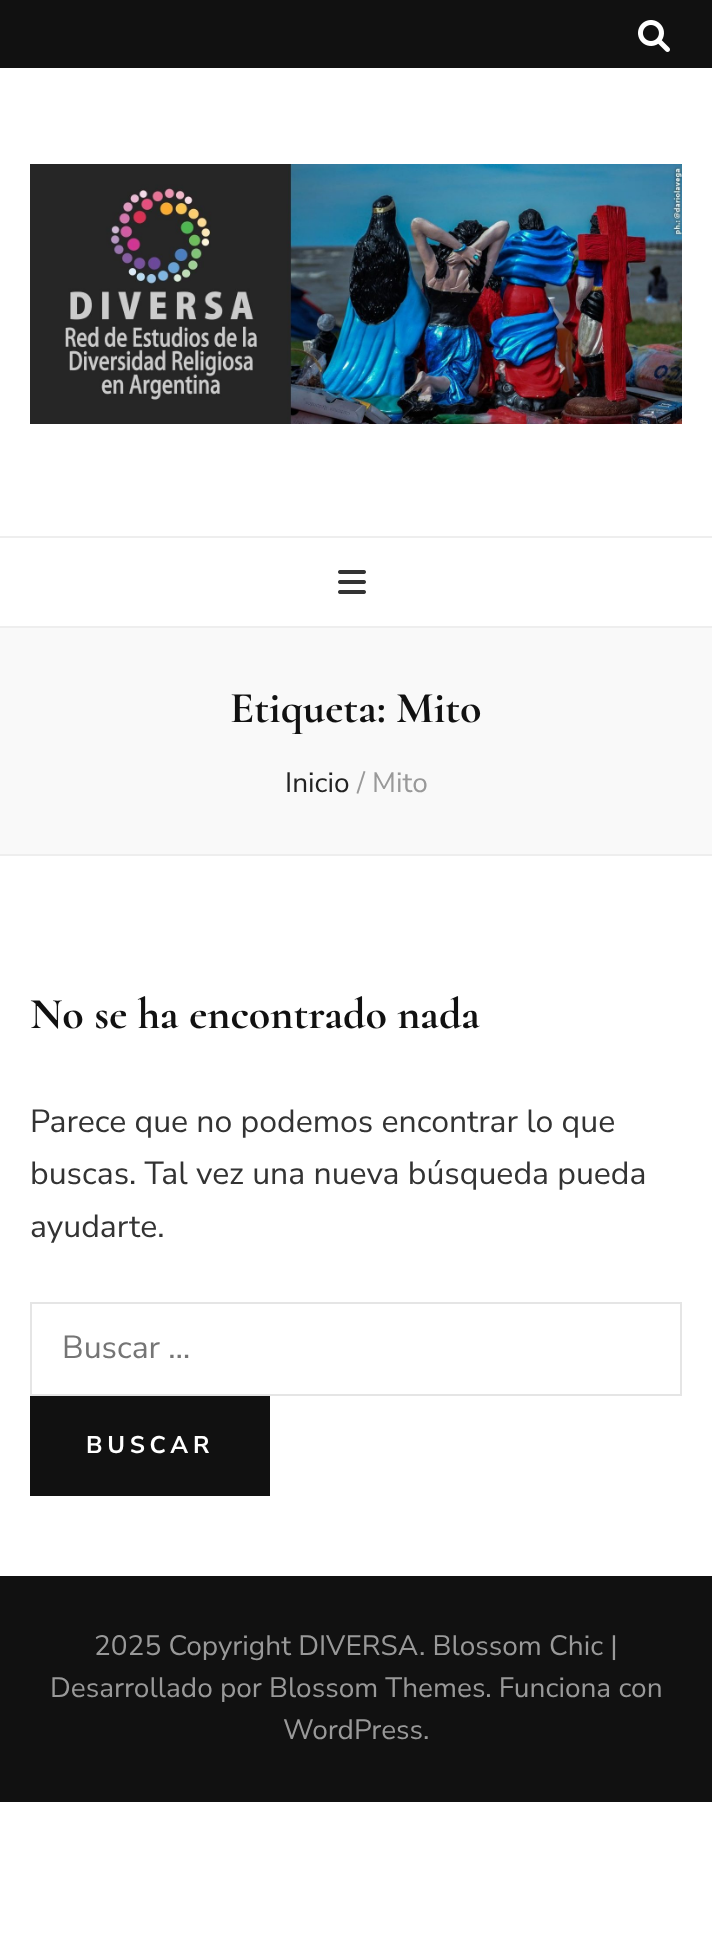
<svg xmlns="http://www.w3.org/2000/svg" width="712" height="1951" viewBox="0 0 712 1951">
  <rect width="100%" height="100%" fill="rgb(255,255,255)"/>
  <rect x="0" y="0" width="712" height="68" fill="rgb(17,17,17)"/>
  <image x="638" y="20" width="32" height="32" href="pic1.png"/>
  <image x="30" y="164" width="652" height="260" href="pic2.png"/>
  <rect x="0" y="536" width="712" height="2" fill="rgb(238,238,238)"/>
  <rect x="0" y="626" width="712" height="2" fill="rgb(238,238,238)"/>
  <image x="338" y="570" width="28" height="24" href="pic3.png"/>
  <rect x="0" y="628" width="712" height="226" fill="rgb(249,249,249)"/>
  <rect x="0" y="854" width="712" height="2" fill="rgb(238,238,238)"/>
  <text x="230" y="722" font-family="Cormorant" font-size="44" font-weight="bold" fill="rgb(17,17,17)">Etiqueta: Mito</text>
  <text x="285" y="792" font-family="Nunito Sans" font-size="28" fill="rgb(34,34,34)">Inicio</text>
  <text x="357" y="792" font-family="Nunito Sans" font-size="28" fill="rgb(153,153,153)">/ Mito</text>
  <text x="30" y="1028" font-family="Cormorant" font-size="44" font-weight="bold" fill="rgb(17,17,17)">No se ha encontrado nada</text>
  <g font-family="Nunito Sans" font-size="32" fill="rgb(51,51,51)">
    <text>
      <tspan x="30" y="1132">Parece que no podemos encontrar lo que</tspan>
      <tspan x="30" y="1184">buscas. Tal vez una nueva búsqueda pueda</tspan>
      <tspan x="30" y="1237">ayudarte.</tspan>
    </text>
  </g>
  <rect x="31" y="1303" width="650" height="92" fill="none" stroke="rgb(229,229,229)" stroke-width="2"/>
  <text x="62" y="1358" font-family="Nunito Sans" font-size="32" fill="rgb(117,117,117)">Buscar …</text>
  <rect x="30" y="1396" width="240" height="100" fill="rgb(17,17,17)"/>
  <text x="86" y="1453" font-family="Nunito Sans" font-size="24" font-weight="bold" letter-spacing="4.75" fill="rgb(255,255,255)">BUSCAR</text>
  <rect x="0" y="1576" width="712" height="226" fill="rgb(17,17,17)"/>
  <g font-family="Nunito Sans" font-size="28" fill="rgb(153,153,153)">
    <text x="94" y="1655">2025 Copyright DIVERSA</text>
    <text x="419" y="1655">. Blossom Chic |</text>
    <text x="50" y="1697">Desarrollado por Blossom Themes. Funciona con</text>
    <text x="283" y="1739">WordPress.</text>
  </g>
</svg>
